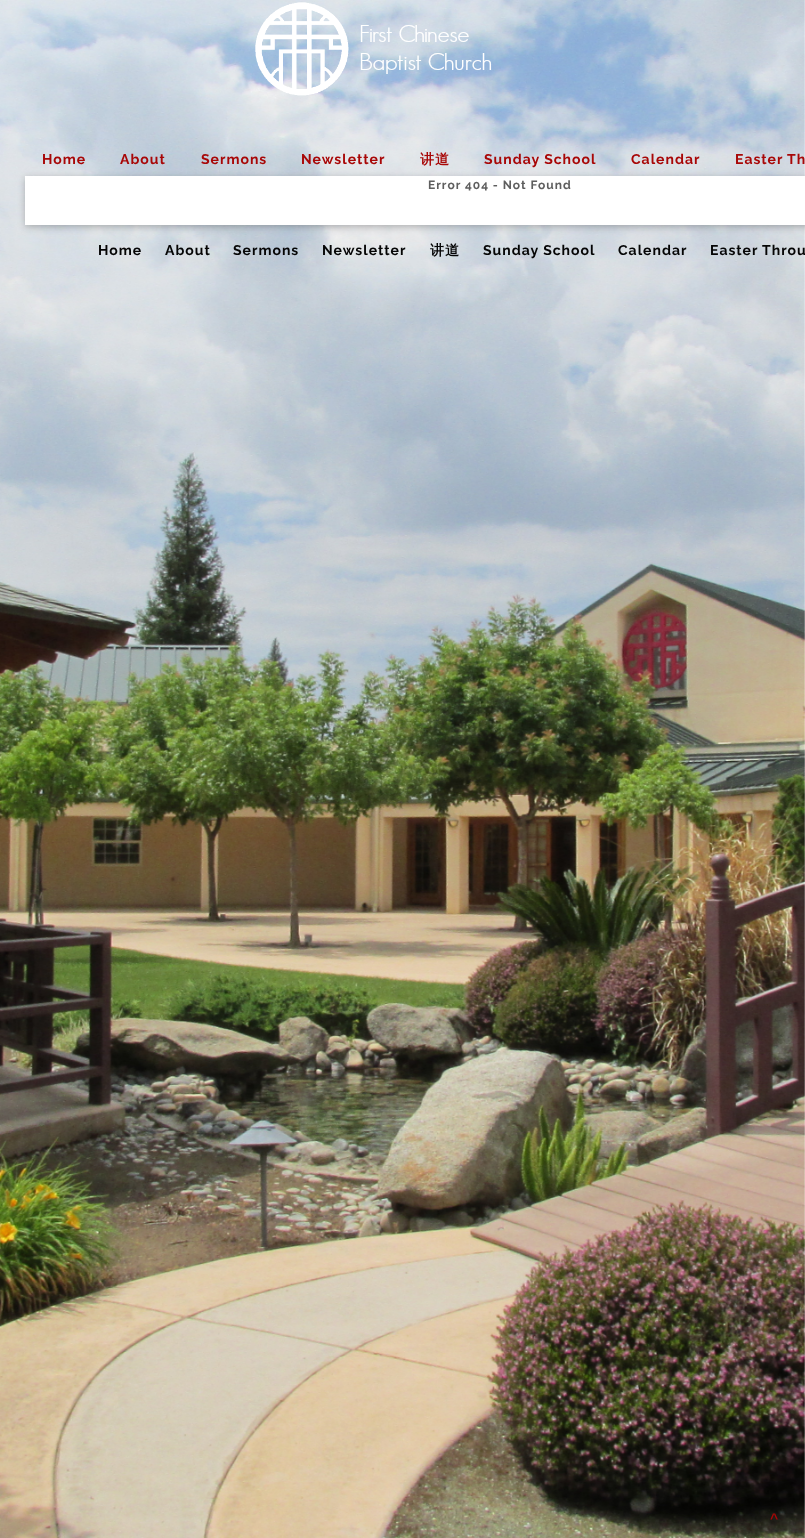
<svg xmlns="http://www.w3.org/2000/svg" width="805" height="1538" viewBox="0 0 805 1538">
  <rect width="100%" height="100%" fill="rgb(255,255,255)"/>
  <image x="0" y="0" width="805" height="1538" href="pic1.png"/>
  <image x="255" y="2" width="237" height="94" href="pic2.png"/>
  <g font-family="Raleway" font-size="14" font-weight="bold" letter-spacing="1" fill="rgb(168,7,7)">
    <text x="42" y="164">Home</text>
    <text x="120" y="164">About</text>
    <text x="201" y="164">Sermons</text>
    <text x="301" y="164">Newsletter</text>
  </g>
  <text x="420" y="164" font-family="WenQuanYi Zen Hei" font-size="14" font-weight="bold" letter-spacing="1" fill="rgb(168,7,7)">讲道</text>
  <rect x="25" y="178" width="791" height="49" fill="rgba(30,30,30,0.28)" filter="blur(3.5px)"/>
  <g font-family="Raleway" font-size="14" font-weight="bold" letter-spacing="1" fill="rgb(168,7,7)">
    <text x="484" y="164">Sunday School</text>
    <text x="631" y="164">Calendar</text>
    <text x="735" y="164">Easter Th</text>
  </g>
  <rect x="25" y="176" width="780" height="49" fill="rgb(255,255,255)"/>
  <text x="428" y="189" font-family="Raleway" font-size="12" font-weight="bold" letter-spacing="1" fill="rgb(94,94,94)">Error 404 - Not Found</text>
  <g font-family="Raleway" font-size="14" font-weight="bold" letter-spacing="1" fill="rgb(5,5,5)">
    <text x="98" y="255">Home</text>
    <text x="165" y="255">About</text>
    <text x="233" y="255">Sermons</text>
    <text x="322" y="255">Newsletter</text>
  </g>
  <text x="430" y="255" font-family="WenQuanYi Zen Hei" font-size="14" font-weight="bold" letter-spacing="1" fill="rgb(5,5,5)">讲道</text>
  <g font-family="Raleway" font-size="14" font-weight="bold" letter-spacing="1" fill="rgb(5,5,5)">
    <text x="483" y="255">Sunday School</text>
    <text x="618" y="255">Calendar</text>
    <text x="710" y="255">Easter Throu</text>
  </g>
  <text x="770" y="1523" font-family="Liberation Sans" font-size="14" font-weight="bold" letter-spacing="1" fill="rgb(168,7,7)">^</text>
</svg>
